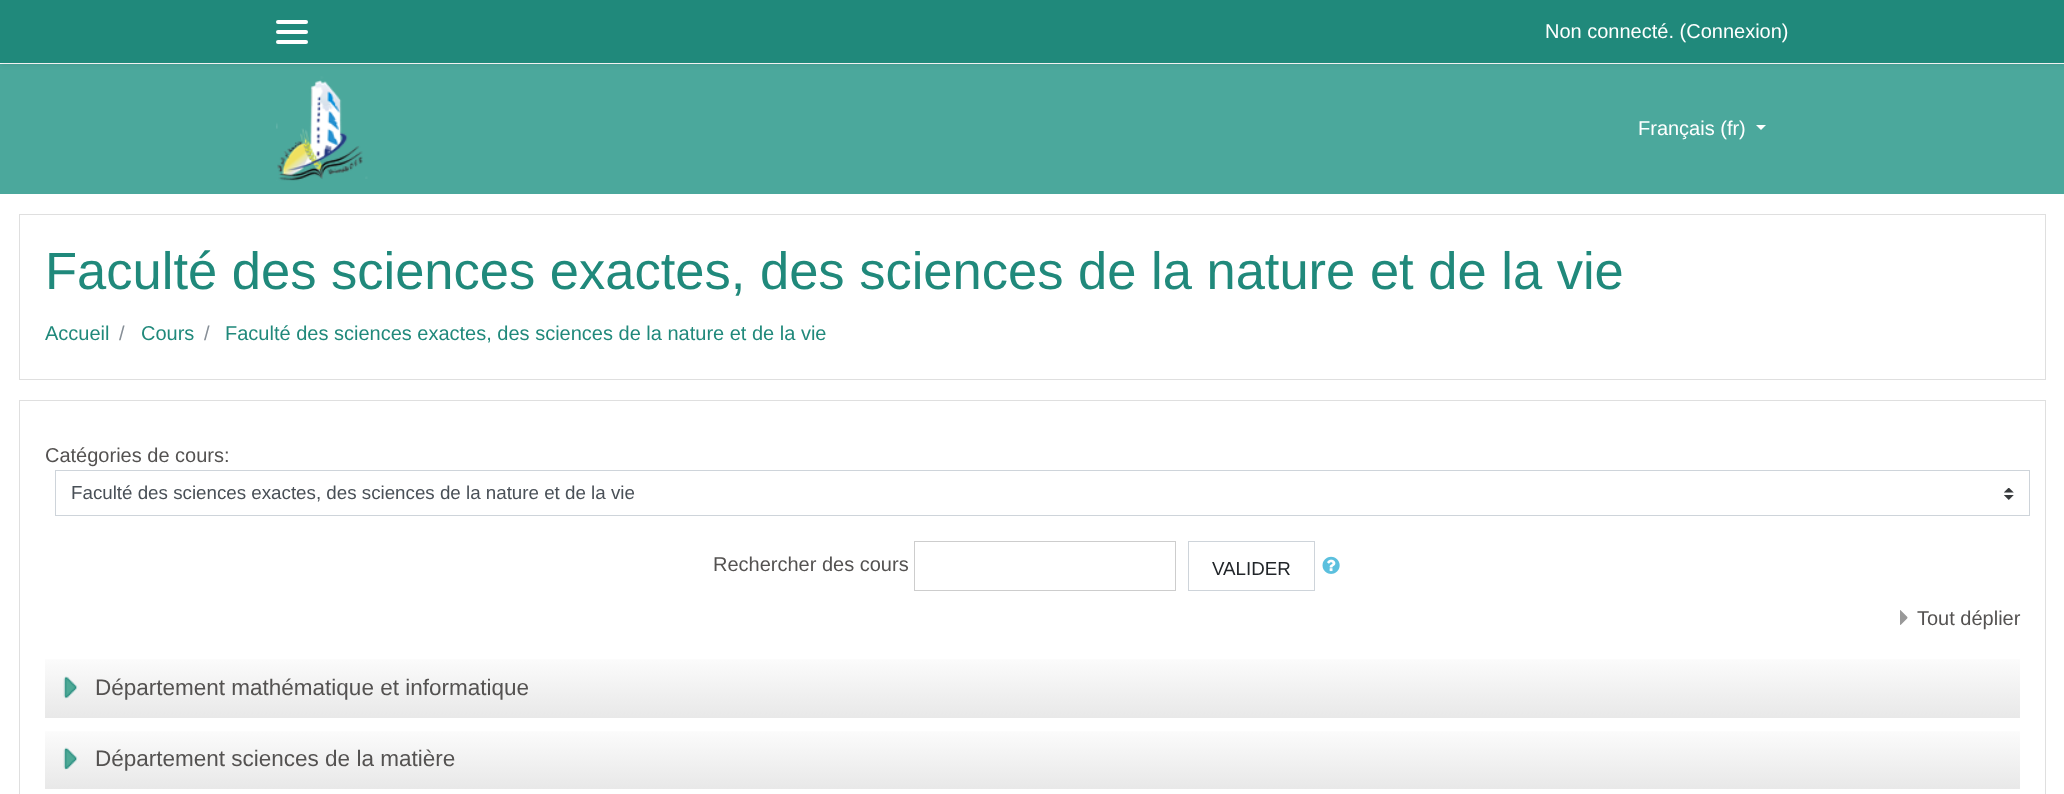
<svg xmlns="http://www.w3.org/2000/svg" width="2064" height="794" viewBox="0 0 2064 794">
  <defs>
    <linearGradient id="g1" gradientUnits="userSpaceOnUse" x1="1033" y1="657" x2="1033" y2="718"><stop offset="0" stop-color="rgb(255,255,255)"/><stop offset="0.05" stop-color="rgb(251,251,251)"/><stop offset="1" stop-color="rgb(232,232,232)"/></linearGradient>
    <linearGradient id="g2" gradientUnits="userSpaceOnUse" x1="1033" y1="729" x2="1033" y2="789"><stop offset="0" stop-color="rgb(255,255,255)"/><stop offset="0.05" stop-color="rgb(251,251,251)"/><stop offset="1" stop-color="rgb(232,232,232)"/></linearGradient>
  </defs>
  <rect width="100%" height="100%" fill="rgb(255,255,255)"/>
  <rect x="0" y="64" width="2064" height="130" fill="rgb(75,168,156)"/>
  <rect x="0" y="3" width="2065" height="62" fill="rgba(0,0,0,0.08)" filter="blur(2.5px)"/>
  <rect x="0" y="0" width="2064" height="63" fill="rgb(32,137,123)"/>
  <rect x="276" y="20" width="32" height="4" rx="2" fill="rgb(255,255,255)"/>
  <rect x="276" y="30" width="32" height="4" rx="2" fill="rgb(255,255,255)"/>
  <rect x="276" y="40" width="32" height="4" rx="2" fill="rgb(255,255,255)"/>
  <text x="1545" y="38" font-family="Liberation Sans" font-size="20" fill="rgb(255,255,255)">Non connecté. (Connexion)</text>
  <image x="276" y="76" width="92" height="105" href="pic1.png"/>
  <text x="1638" y="135" font-family="Liberation Sans" font-size="20" fill="rgb(255,255,255)">Français (fr)</text>
  <path d="M1756 125H1766L1761 130Z" fill="rgb(255,255,255)"/>
  <rect x="19.5" y="214.5" width="2026" height="165" fill="none" stroke="rgb(223,223,223)"/>
  <text x="45" y="289" font-family="Liberation Sans" font-size="52.5" fill="rgb(32,137,123)">Faculté des sciences exactes, des sciences de la nature et de la vie</text>
  <text x="45" y="340" font-family="Liberation Sans" font-size="20" fill="rgb(32,137,123)">Accueil</text>
  <text x="119" y="340" font-family="Liberation Sans" font-size="20" fill="rgb(134,142,150)">/</text>
  <text x="141" y="340" font-family="Liberation Sans" font-size="20" fill="rgb(32,137,123)">Cours</text>
  <text x="204" y="340" font-family="Liberation Sans" font-size="20" fill="rgb(134,142,150)">/</text>
  <text x="225" y="340" font-family="Liberation Sans" font-size="20" fill="rgb(32,137,123)">Faculté des sciences exactes, des sciences de la nature et de la vie</text>
  <rect x="19.5" y="400.5" width="2026" height="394" fill="none" stroke="rgb(223,223,223)"/>
  <text x="45" y="462" font-family="Liberation Sans" font-size="20" fill="rgb(84,82,81)">Catégories de cours:</text>
  <image x="2004" y="488" width="10" height="12" href="pic2.png"/>
  <rect x="55.5" y="470.5" width="1974" height="45" fill="none" stroke="rgb(206,212,218)"/>
  <text x="71" y="499" font-family="Liberation Sans" font-size="18.75" fill="rgb(73,80,87)">Faculté des sciences exactes, des sciences de la nature et de la vie</text>
  <text x="713" y="571" font-family="Liberation Sans" font-size="20" fill="rgb(84,82,81)">Rechercher des cours</text>
  <rect x="914.5" y="541.5" width="261" height="49" fill="none" stroke="rgb(205,205,205)"/>
  <rect x="1188.5" y="541.5" width="126" height="49" fill="none" stroke="rgb(206,212,218)"/>
  <text x="1212" y="575" font-family="Liberation Sans" font-size="18.75" fill="rgb(33,37,41)">VALIDER</text>
  <image x="1322" y="556" width="18" height="18" href="pic3.png"/>
  <image x="1900" y="610" width="8" height="15" href="pic4.png"/>
  <text x="1917" y="625" font-family="Liberation Sans" font-size="20" fill="rgb(84,82,81)">Tout déplier</text>
  <rect x="45" y="659" width="1975" height="59" fill="url(#g1)"/>
  <image x="63" y="676" width="15" height="23" href="pic5.png"/>
  <text x="95" y="695" font-family="Liberation Sans" font-size="22.5" fill="rgb(84,82,81)">Département mathématique et informatique</text>
  <rect x="45" y="731" width="1975" height="58" fill="url(#g2)"/>
  <image x="63" y="747" width="15" height="23" href="pic6.png"/>
  <text x="95" y="766" font-family="Liberation Sans" font-size="22.5" fill="rgb(84,82,81)">Département sciences de la matière</text>
</svg>
